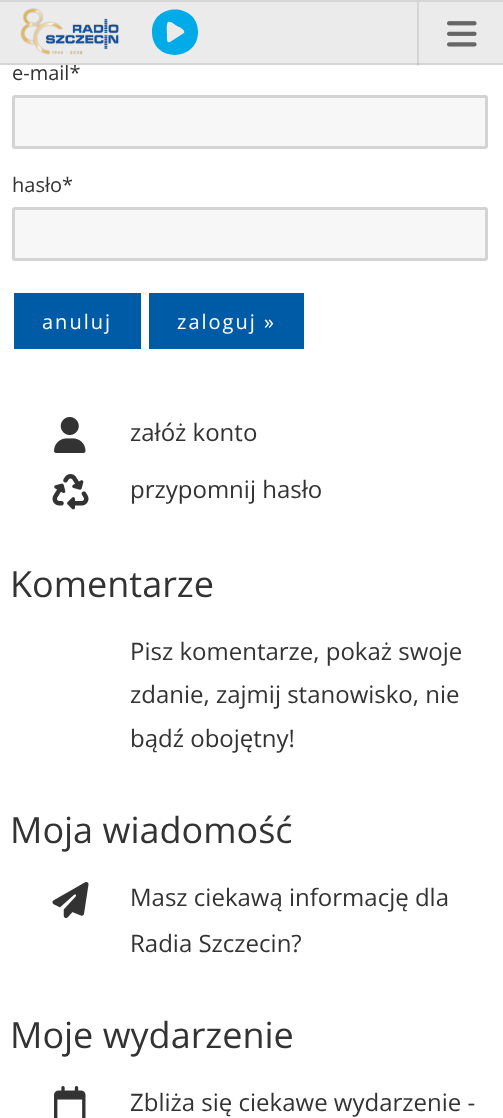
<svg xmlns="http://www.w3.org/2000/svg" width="503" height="1118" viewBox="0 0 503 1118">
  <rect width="100%" height="100%" fill="rgb(255,255,255)"/>
  <rect x="417" y="65" width="2" height="1" fill="rgb(227,227,227)"/>
  <rect x="0" y="2" width="503" height="61" fill="rgb(235,235,235)"/>
  <rect x="417" y="2" width="2" height="63" fill="rgb(213,213,213)"/>
  <rect x="0" y="0" width="503" height="2" fill="rgb(213,213,213)"/>
  <text x="12" y="80" font-family="Open Sans" font-size="20" fill="rgb(51,51,51)">e-mail*</text>
  <rect x="0" y="63" width="503" height="2" fill="rgb(213,213,213)"/>
  <rect x="417" y="63" width="2" height="2" fill="rgb(197,197,197)"/>
  <image x="20" y="8" width="99" height="47" href="pic1.png"/>
  <path d="M152 32C152 2 198 2 198 32C198 62 152 63 152 32ZM168 22C166 24 167 33 167 35C167 36 166 44 170 42L184 33C186 30 179 27 177 26C175 25 171 21 168 22Z" fill="rgb(0,171,231)"/>
  <image x="447" y="21" width="30" height="26" href="pic2.png"/>
  <rect x="13.5" y="96.5" width="473" height="51" rx="1.5" fill="rgb(247,247,247)" stroke="rgb(211,211,211)" stroke-width="3"/>
  <text x="12" y="192" font-family="Open Sans" font-size="20" fill="rgb(51,51,51)">hasło*</text>
  <rect x="13.5" y="208.5" width="473" height="51" rx="1.5" fill="rgb(247,247,247)" stroke="rgb(211,211,211)" stroke-width="3"/>
  <rect x="14" y="293" width="127" height="56" fill="rgb(0,91,166)"/>
  <text x="42" y="329" font-family="Open Sans" font-size="20" letter-spacing="2" fill="rgb(255,255,255)">anuluj</text>
  <rect x="149" y="293" width="155" height="56" fill="rgb(0,91,166)"/>
  <text x="177" y="329" font-family="Open Sans" font-size="20" letter-spacing="2" fill="rgb(255,255,255)">zaloguj »</text>
  <image x="54" y="417" width="32" height="36" href="pic3.png"/>
  <text x="130" y="441" font-family="Open Sans" font-size="24" fill="rgb(51,51,51)">załóż konto</text>
  <image x="52" y="474" width="37" height="36" href="pic4.png"/>
  <text x="130" y="498" font-family="Open Sans" font-size="24" fill="rgb(51,51,51)">przypomnij hasło</text>
  <text x="10" y="597" font-family="Open Sans" font-size="36" fill="rgb(51,51,51)">Komentarze</text>
  <g font-family="Open Sans" font-size="24" fill="rgb(51,51,51)">
    <text>
      <tspan x="130" y="660">Pisz komentarze, pokaż swoje</tspan>
      <tspan x="130" y="703">zdanie, zajmij stanowisko, nie</tspan>
      <tspan x="130" y="747">bądź obojętny!</tspan>
    </text>
  </g>
  <text x="10" y="843" font-family="Open Sans" font-size="36" fill="rgb(51,51,51)">Moja wiadomość</text>
  <image x="52" y="882" width="37" height="36" href="pic5.png"/>
  <g font-family="Open Sans" font-size="24" fill="rgb(51,51,51)">
    <text>
      <tspan x="130" y="906">Masz ciekawą informację dla</tspan>
      <tspan x="130" y="952">Radia Szczecin?</tspan>
    </text>
  </g>
  <text x="10" y="1048" font-family="Open Sans" font-size="36" fill="rgb(51,51,51)">Moje wydarzenie</text>
  <image x="54" y="1086" width="32" height="32" href="pic6.png"/>
  <text x="130" y="1111" font-family="Open Sans" font-size="24" fill="rgb(51,51,51)">Zbliża się ciekawe wydarzenie -</text>
</svg>
